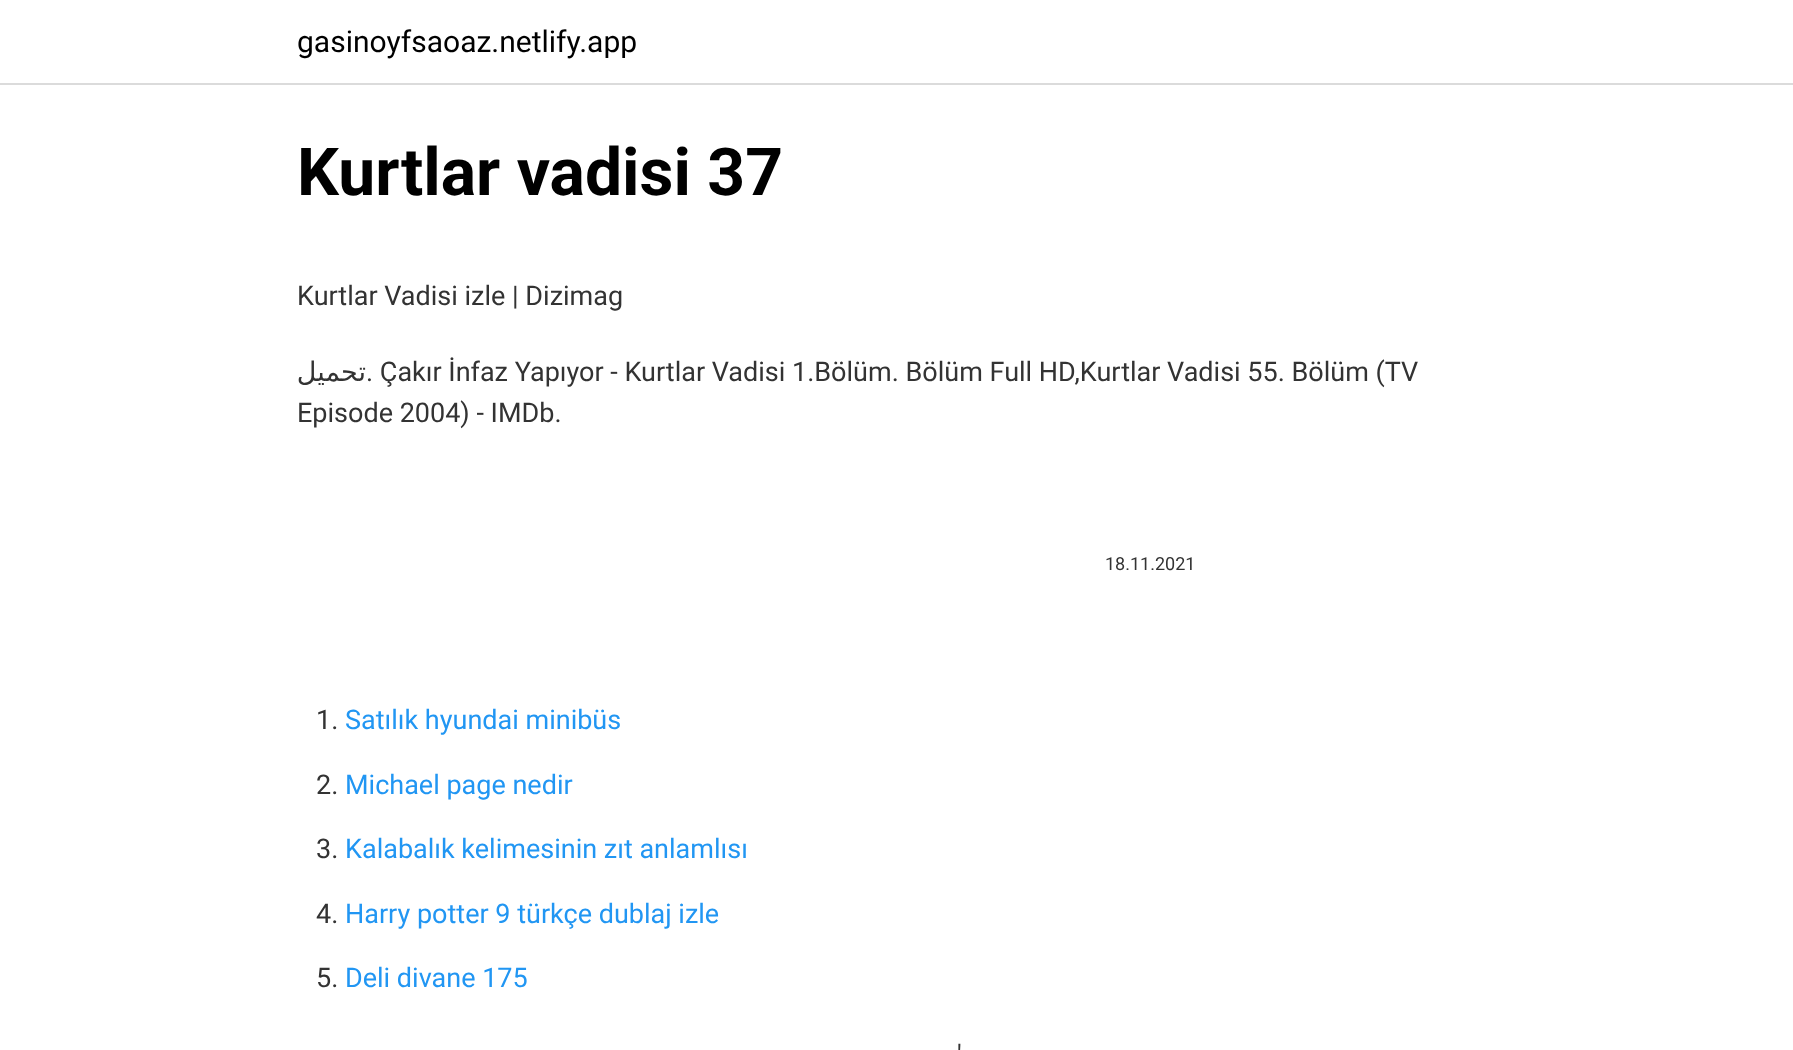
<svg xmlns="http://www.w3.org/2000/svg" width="1793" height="1050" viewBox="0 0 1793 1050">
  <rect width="100%" height="100%" fill="rgb(255,255,255)"/>
  <rect x="0" y="83" width="1793" height="2" fill="rgb(219,219,219)"/>
  <text x="297" y="52" font-family="Roboto" font-size="30" fill="rgb(0,0,0)">gasinoyfsaoaz.netlify.app</text>
  <text x="297" y="195" font-family="Roboto" font-size="66" font-weight="bold" fill="rgb(0,0,0)">Kurtlar vadisi 37</text>
  <text x="297" y="305" font-family="Roboto" font-size="27" fill="rgb(51,51,51)">Kurtlar Vadisi izle | Dizimag</text>
  <text x="366" y="381" font-family="DejaVu Sans" font-size="27" direction="rtl" fill="rgb(51,51,51)">تحميل</text>
  <g font-family="Roboto" font-size="27" fill="rgb(51,51,51)">
    <text x="366" y="381">. Çakır İnfaz Yapıyor - Kurtlar Vadisi 1.Bölüm. Bölüm Full HD,Kurtlar Vadisi 55. Bölüm (TV</text>
    <text x="297" y="422">Episode 2004) - IMDb.</text>
  </g>
  <text x="1105" y="570" font-family="Roboto" font-size="18" fill="rgb(51,51,51)">18.11.2021</text>
  <text x="316" y="729" font-family="Roboto" font-size="27" fill="rgb(51,51,51)">1.</text>
  <text x="345" y="729" font-family="Roboto" font-size="27" fill="rgb(33,150,243)">Satılık hyundai minibüs</text>
  <text x="316" y="794" font-family="Roboto" font-size="27" fill="rgb(51,51,51)">2.</text>
  <text x="345" y="794" font-family="Roboto" font-size="27" fill="rgb(33,150,243)">Michael page nedir</text>
  <text x="316" y="858" font-family="Roboto" font-size="27" fill="rgb(51,51,51)">3.</text>
  <text x="345" y="858" font-family="Roboto" font-size="27" fill="rgb(33,150,243)">Kalabalık kelimesinin zıt anlamlısı</text>
  <text x="316" y="923" font-family="Roboto" font-size="27" fill="rgb(51,51,51)">4.</text>
  <text x="345" y="923" font-family="Roboto" font-size="27" fill="rgb(33,150,243)">Harry potter 9 türkçe dublaj izle</text>
  <text x="316" y="987" font-family="Roboto" font-size="27" fill="rgb(51,51,51)">5.</text>
  <text x="345" y="987" font-family="Roboto" font-size="27" fill="rgb(33,150,243)">Deli divane 175</text>
  <text x="957" y="1064" font-family="Roboto" font-size="27" fill="rgb(51,51,51)">'</text>
</svg>
